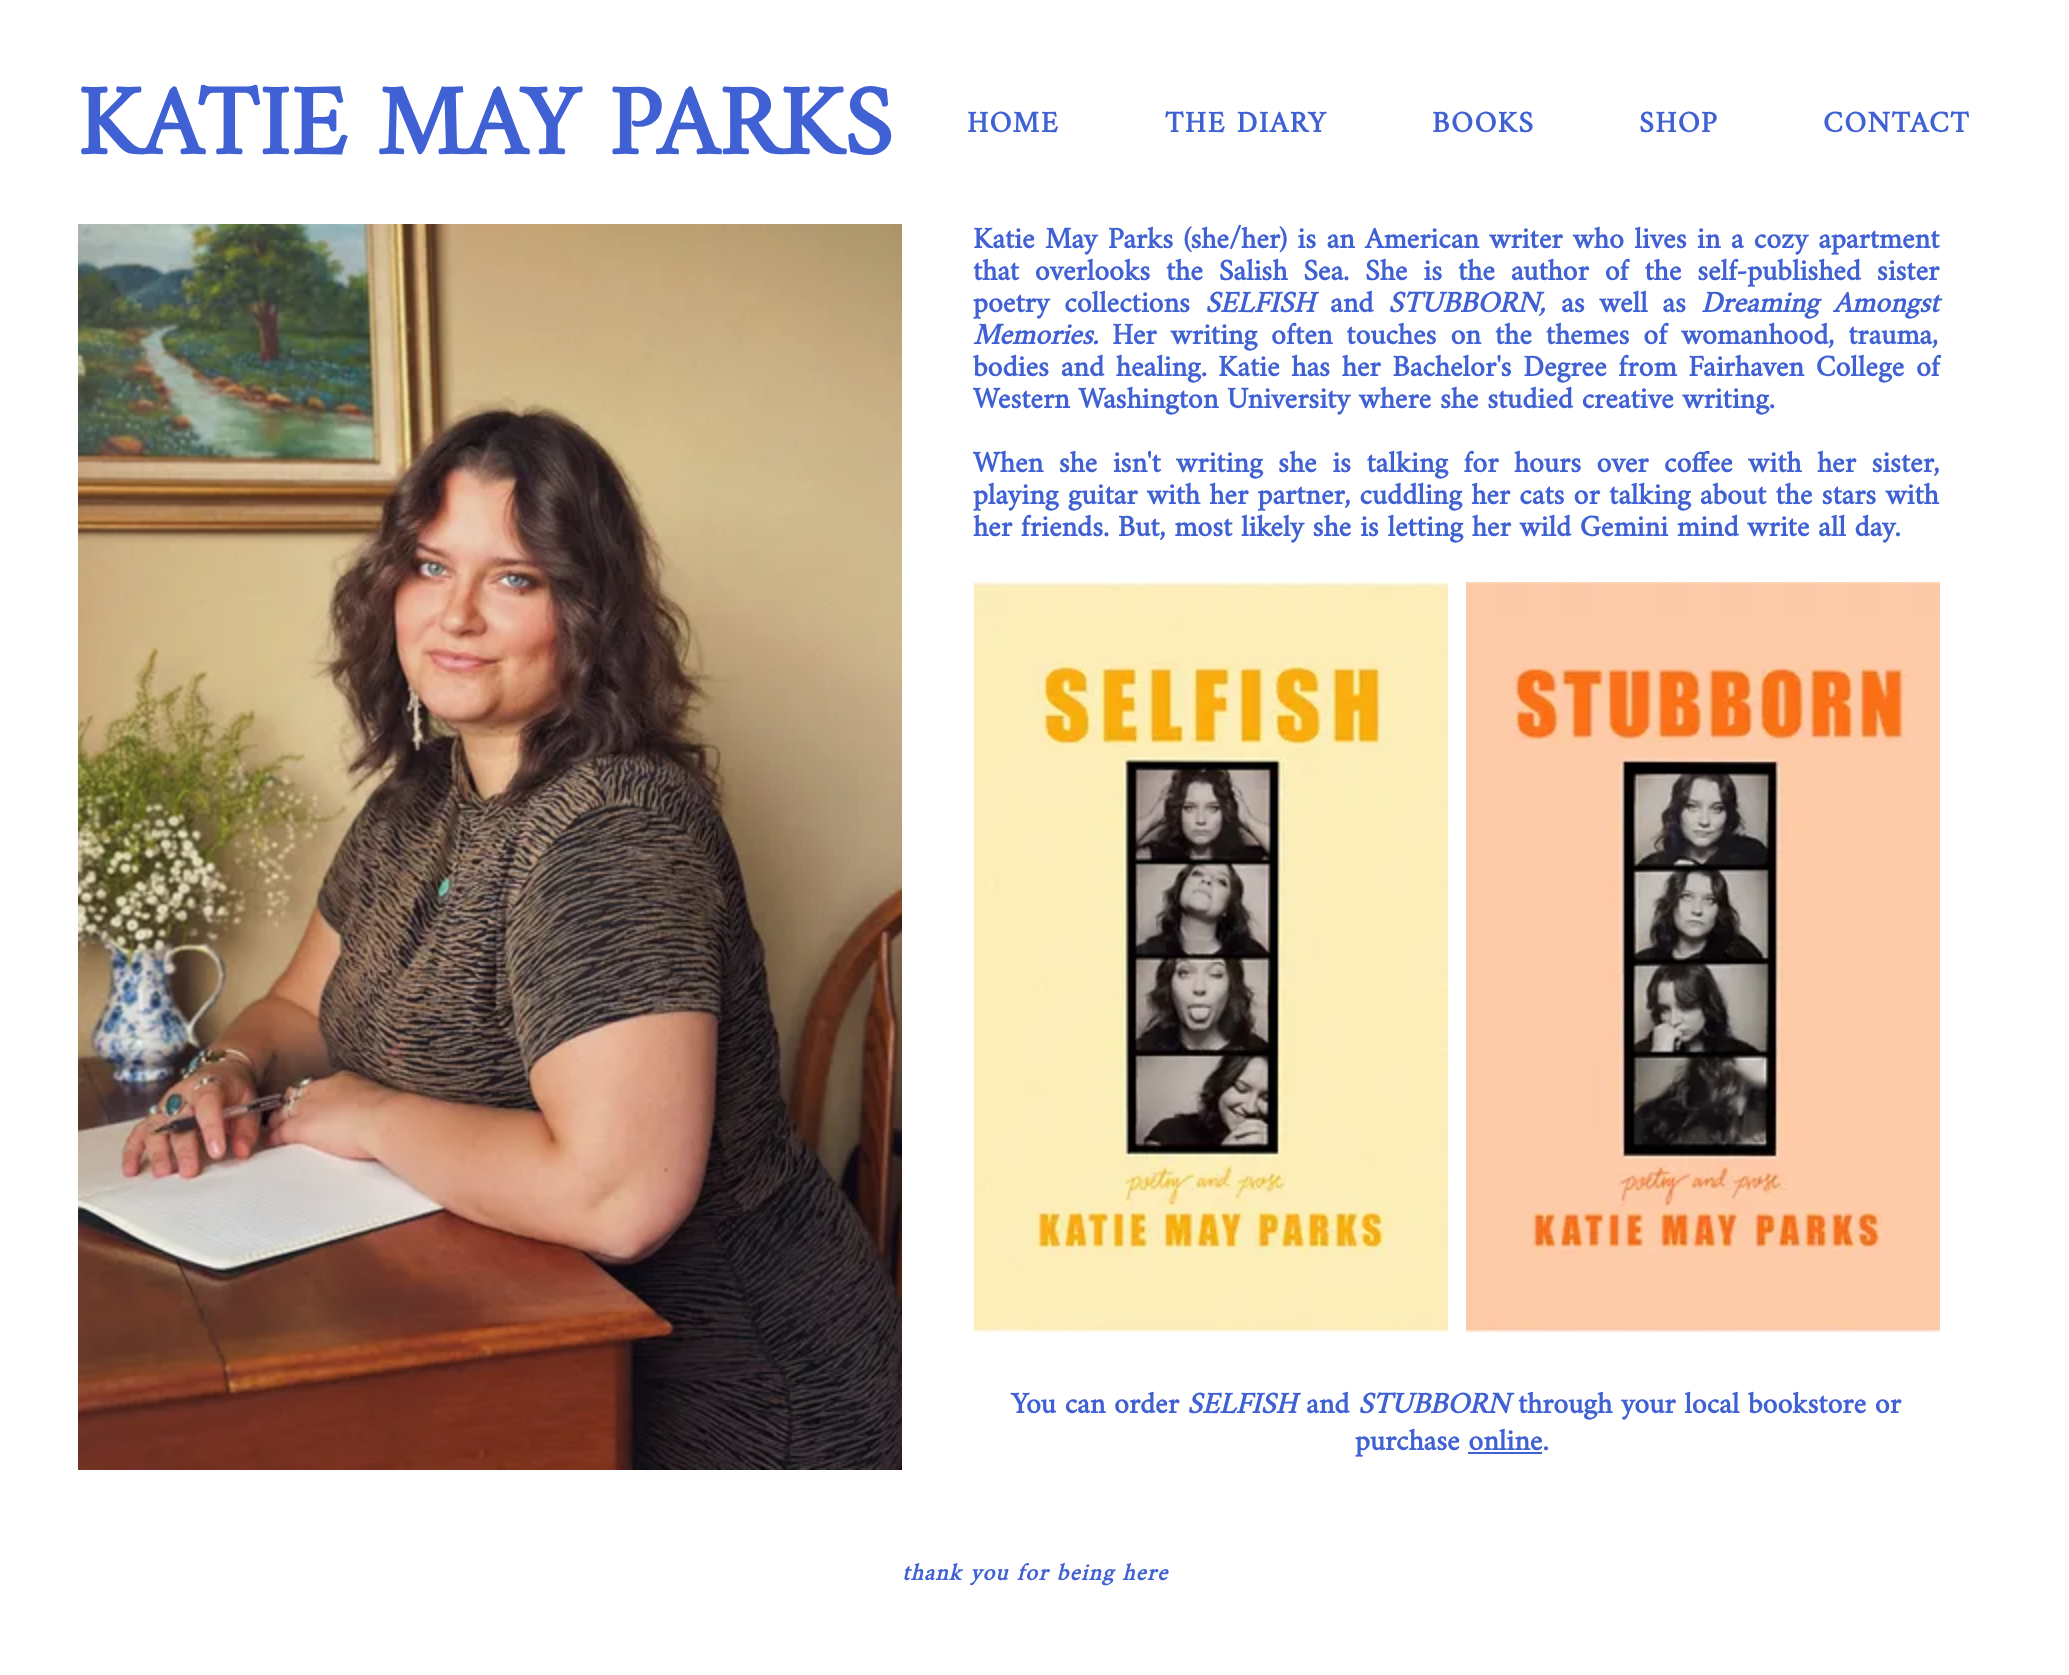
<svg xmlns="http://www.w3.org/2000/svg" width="2069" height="1675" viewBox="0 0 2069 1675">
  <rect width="100%" height="100%" fill="rgb(255,255,255)"/>
  <text x="77" y="154" font-family="Amiri" font-size="100" font-weight="bold" fill="rgb(64,97,211)">KATIE MAY PARKS</text>
  <g font-family="Amiri" font-size="30" font-weight="bold" letter-spacing="1.5" fill="rgb(64,97,211)">
    <text x="967" y="132">HOME</text>
    <text x="1165" y="132">THE DIARY</text>
    <text x="1432" y="132">BOOKS</text>
    <text x="1639" y="132">SHOP</text>
    <text x="1823" y="132">CONTACT</text>
  </g>
  <image x="78" y="224" width="824" height="1246" href="pic1.png"/>
  <g font-family="Amiri" font-size="30" font-weight="bold" fill="rgb(64,97,211)">
    <text>
      <tspan x="973" y="248" word-spacing="1.6">Katie May Parks (she/her) is an American writer who lives in a cozy apartment</tspan>
      <tspan x="973" y="280" word-spacing="7.1">that overlooks the Salish Sea. She is the author of the self-published sister</tspan>
      <tspan x="973" y="312" word-spacing="6">poetry collections</tspan>
    </text>
  </g>
  <text x="1205" y="312" font-family="Amiri" font-size="30" font-weight="bold" font-style="italic" fill="rgb(64,97,211)">SELFISH</text>
  <text x="1330" y="312" font-family="Amiri" font-size="30" font-weight="bold" fill="rgb(64,97,211)">and</text>
  <text x="1388" y="312" font-family="Amiri" font-size="30" font-weight="bold" font-style="italic" fill="rgb(64,97,211)">STUBBORN,</text>
  <text x="1561" y="312" word-spacing="6" font-family="Amiri" font-size="30" font-weight="bold" fill="rgb(64,97,211)">as well as</text>
  <g font-family="Amiri" font-size="30" font-weight="bold" font-style="italic" fill="rgb(64,97,211)">
    <text x="1701" y="312" word-spacing="6">Dreaming Amongst</text>
    <text x="973" y="344">Memories.</text>
  </g>
  <g font-family="Amiri" font-size="30" font-weight="bold" fill="rgb(64,97,211)">
    <text x="1112" y="344" word-spacing="5.25">Her writing often touches on the themes of womanhood, trauma,</text>
    <text x="973" y="376" word-spacing="3">bodies and healing.</text>
    <text x="1218" y="376" word-spacing="3">Katie has her Bachelor's Degree from Fairhaven College of</text>
    <text x="973" y="408">Western Washington University where she studied creative writing.</text>
    <text>
      <tspan x="973" y="472" word-spacing="6.75">When she isn't writing she is talking for hours over coffee with her sister,</tspan>
      <tspan x="973" y="504" word-spacing="0.5">playing guitar with her partner, cuddling her cats or talking about the stars with</tspan>
      <tspan x="973" y="536">her friends. But, most likely she is letting her wild Gemini mind write all day.</tspan>
    </text>
  </g>
  <image x="974" y="582" width="474" height="750" href="pic2.png"/>
  <image x="1466" y="582" width="474" height="750" href="pic3.png"/>
  <text x="1011" y="1413" font-family="Amiri" font-size="30" font-weight="bold" fill="rgb(64,97,211)">You can order</text>
  <text x="1187" y="1413" font-family="Amiri" font-size="30" font-weight="bold" font-style="italic" fill="rgb(64,97,211)">SELFISH</text>
  <text x="1306" y="1413" font-family="Amiri" font-size="30" font-weight="bold" fill="rgb(64,97,211)">and</text>
  <text x="1358" y="1413" font-family="Amiri" font-size="30" font-weight="bold" font-style="italic" fill="rgb(64,97,211)">STUBBORN</text>
  <g font-family="Amiri" font-size="30" font-weight="bold" fill="rgb(64,97,211)">
    <text x="1518" y="1413">through your local bookstore or</text>
    <text x="1355" y="1450">purchase online.</text>
  </g>
  <rect x="1468" y="1452" width="74" height="2" fill="rgb(64,97,211)"/>
  <text x="902" y="1580" font-family="Amiri" font-size="24" font-weight="bold" font-style="italic" letter-spacing="1.2" fill="rgb(64,97,211)">thank you for being here</text>
</svg>
